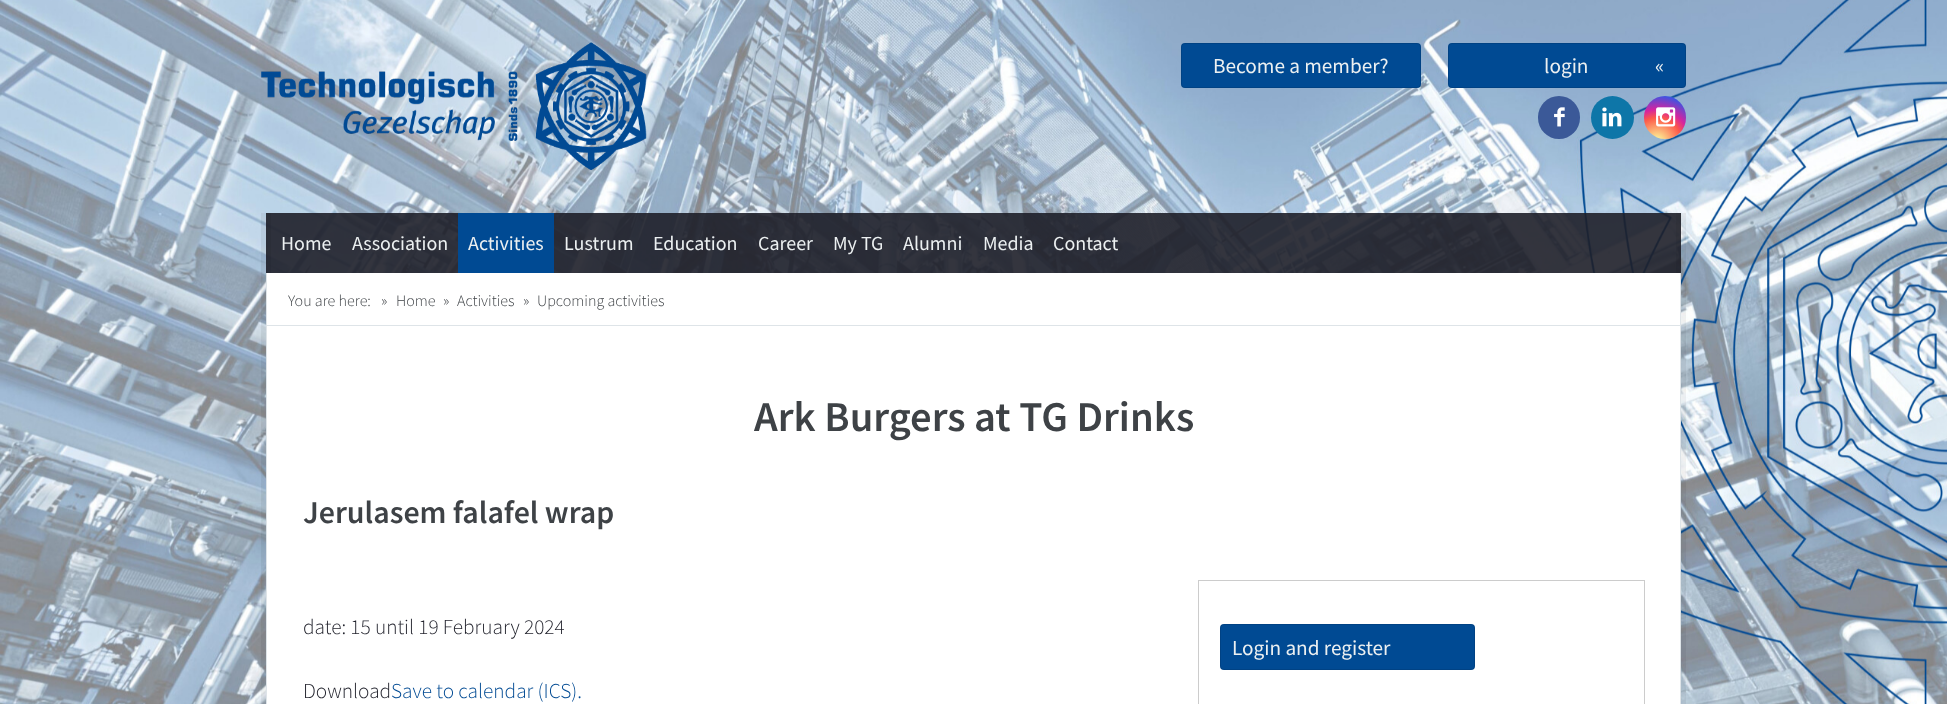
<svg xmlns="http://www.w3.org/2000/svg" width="1947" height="704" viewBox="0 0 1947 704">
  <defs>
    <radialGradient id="g1" gradientUnits="userSpaceOnUse" cx="1657" cy="142" r="54"><stop offset="0" stop-color="rgb(253,244,151)"/><stop offset="0.05" stop-color="rgb(253,244,151)"/><stop offset="0.45" stop-color="rgb(253,89,73)"/><stop offset="0.6" stop-color="rgb(214,36,159)"/><stop offset="0.9" stop-color="rgb(40,90,235)"/></radialGradient>
  </defs>
  <rect width="100%" height="100%" fill="rgb(255,255,255)"/>
  <image x="0" y="0" width="1947" height="704" href="pic1.png"/>
  <image x="261" y="42" width="386" height="128" href="pic2.png"/>
  <rect x="1538" y="96" width="42" height="43" rx="21" fill="rgb(59,89,152)"/>
  <image x="1554" y="107" width="11" height="20" href="pic3.png"/>
  <circle cx="1612.5" cy="117.5" r="21.5" fill="rgb(14,118,168)"/>
  <image x="1602" y="107" width="20" height="20" href="pic4.png"/>
  <rect x="1644" y="96" width="42" height="43" rx="21" fill="url(#g1)"/>
  <image x="1656" y="107" width="20" height="20" href="pic5.png"/>
  <rect x="1181" y="43" width="240" height="45" rx="4" fill="rgb(0,74,147)"/>
  <rect x="1181.5" y="43.5" width="239" height="44" rx="3.5" fill="none" stroke="rgba(0,0,0,0.1)"/>
  <text x="1213" y="73" font-family="Source Sans Pro" font-size="21.25" fill="rgb(236,240,241)">Become a member?</text>
  <rect x="1448" y="43" width="238" height="45" rx="4" fill="rgb(0,74,147)"/>
  <rect x="1448.5" y="43.5" width="237" height="44" rx="3.5" fill="none" stroke="rgba(0,0,0,0.1)"/>
  <g font-family="Source Sans Pro" font-size="21.25" fill="rgb(236,240,241)">
    <text x="1544" y="73">login</text>
    <text x="1655" y="73">«</text>
  </g>
  <rect x="1681" y="213" width="5" height="60" fill="rgba(0,0,0,0.05)"/>
  <rect x="261" y="213" width="5" height="60" fill="rgba(0,0,0,0.05)"/>
  <rect x="266" y="213" width="1415" height="60" fill="rgba(30,31,41,0.9)"/>
  <rect x="1676" y="213" width="5" height="60" fill="rgba(0,0,0,0.05)"/>
  <rect x="266" y="213" width="5" height="60" fill="rgba(0,0,0,0.05)"/>
  <g font-family="Source Sans Pro" font-size="20" fill="rgb(236,240,241)">
    <text x="281" y="250">Home</text>
    <text x="352" y="250">Association</text>
  </g>
  <rect x="458" y="213" width="96" height="60" fill="rgb(0,74,147)"/>
  <g font-family="Source Sans Pro" font-size="20" fill="rgb(236,240,241)">
    <text x="468" y="250">Activities</text>
    <text x="564" y="250">Lustrum</text>
    <text x="653" y="250">Education</text>
    <text x="758" y="250">Career</text>
    <text x="833" y="250">My TG</text>
    <text x="903" y="250">Alumni</text>
    <text x="983" y="250">Media</text>
    <text x="1053" y="250">Contact</text>
  </g>
  <rect x="1681" y="273" width="5" height="52" fill="rgba(0,0,0,0.05)"/>
  <rect x="261" y="273" width="5" height="52" fill="rgba(0,0,0,0.05)"/>
  <rect x="267" y="273" width="1413" height="52" fill="rgb(255,255,255)"/>
  <rect x="1680" y="273" width="1" height="52" fill="rgb(222,228,232)"/>
  <rect x="266" y="273" width="1" height="52" fill="rgb(222,228,232)"/>
  <g font-family="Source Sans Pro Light" font-size="16" font-weight="300" fill="rgb(62,66,70)">
    <text x="288" y="306">You are here:</text>
    <text x="381" y="306">»</text>
    <text x="396" y="306">Home</text>
    <text x="443" y="306">»</text>
    <text x="457" y="306">Activities</text>
    <text x="523" y="306">»</text>
    <text x="537" y="306">Upcoming activities</text>
  </g>
  <rect x="1681" y="325" width="5" height="379" fill="rgba(0,0,0,0.05)"/>
  <rect x="261" y="325" width="5" height="379" fill="rgba(0,0,0,0.05)"/>
  <rect x="266.5" y="325.5" width="1414" height="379" fill="rgb(255,255,255)" stroke="rgb(222,228,232)"/>
  <text x="754" y="431" font-family="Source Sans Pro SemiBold" font-size="42.5" font-weight="600" fill="rgb(62,66,70)">Ark Burgers at TG Drinks</text>
  <text x="303" y="523" font-family="Source Sans Pro SemiBold" font-size="31.9" font-weight="600" fill="rgb(62,66,70)">Jerulasem falafel wrap</text>
  <g font-family="Source Sans Pro Light" font-size="21.25" font-weight="300" fill="rgb(30,31,41)">
    <text x="303" y="634">date: 15 until 19 February 2024</text>
    <text x="303" y="698">Download</text>
  </g>
  <text x="391" y="698" font-family="Source Sans Pro Light" font-size="21.25" font-weight="300" fill="rgb(0,74,147)">Save to calendar (ICS).</text>
  <rect x="1198.5" y="580.5" width="446" height="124" fill="none" stroke="rgb(204,204,204)"/>
  <rect x="1220" y="624" width="255" height="46" rx="4" fill="rgb(0,74,147)"/>
  <rect x="1220.5" y="624.5" width="254" height="45" rx="3.5" fill="none" stroke="rgba(0,0,0,0.1)"/>
  <text x="1232" y="655" font-family="Source Sans Pro" font-size="21.25" fill="rgb(236,240,241)">Login and register</text>
</svg>
